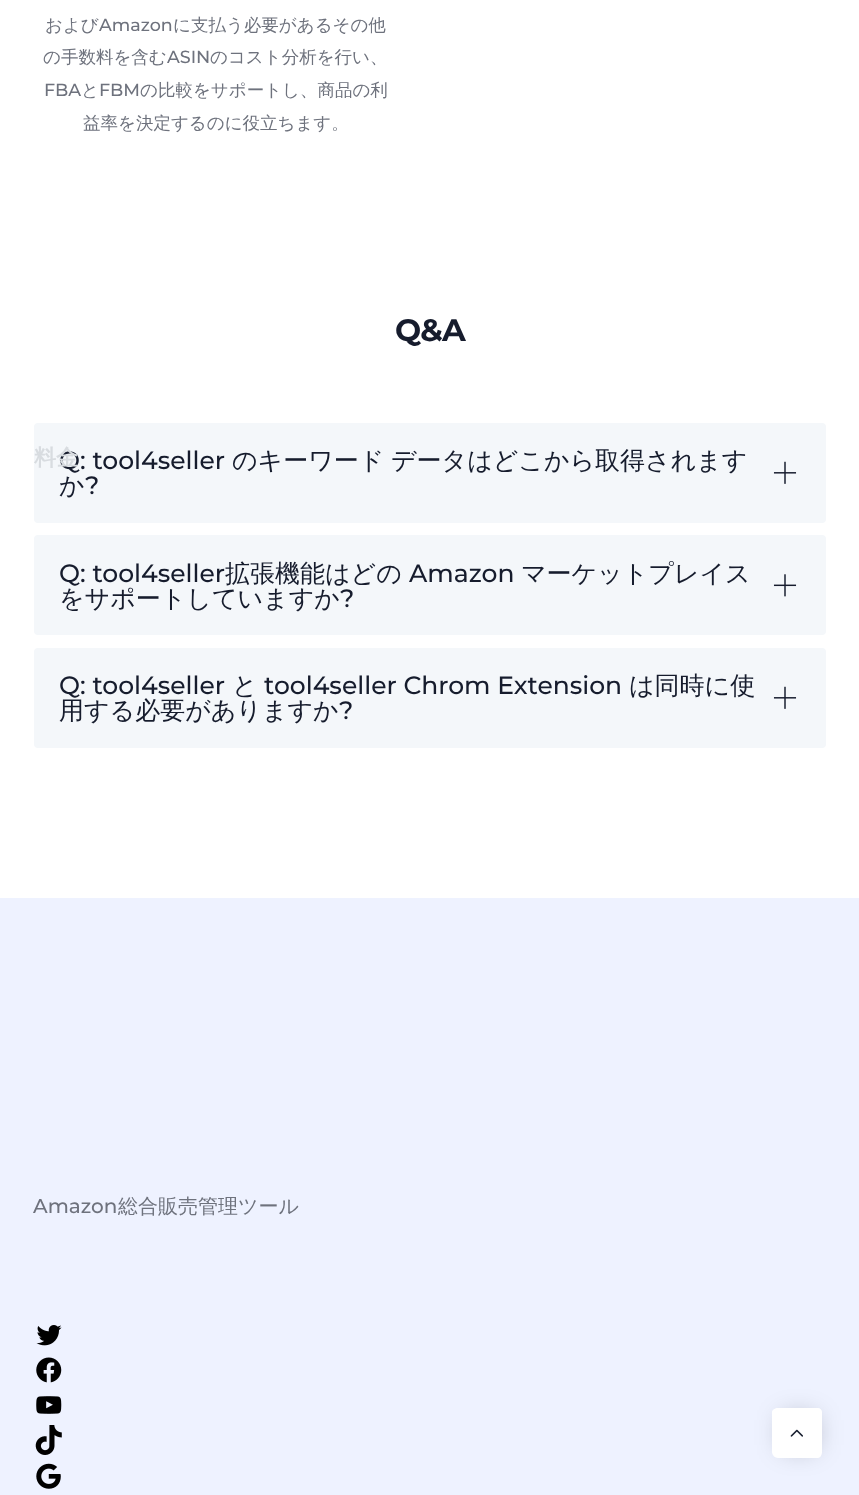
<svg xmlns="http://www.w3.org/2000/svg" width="859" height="1495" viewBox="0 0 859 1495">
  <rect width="100%" height="100%" fill="rgb(255,255,255)"/>
  <text x="45" y="31" font-family="WenQuanYi Zen Hei" font-size="17.5" font-weight="500" fill="rgb(110,114,125)">および</text>
  <text x="99" y="31" font-family="Montserrat" font-size="17.5" font-weight="500" fill="rgb(110,114,125)">Amazon</text>
  <g font-family="WenQuanYi Zen Hei" font-size="17.5" font-weight="500" fill="rgb(110,114,125)">
    <text x="173" y="31">に支払う必要があるその他</text>
    <text x="43" y="63">の手数料を含む</text>
  </g>
  <text x="167" y="63" font-family="Montserrat" font-size="17.5" font-weight="500" fill="rgb(110,114,125)">ASIN</text>
  <text x="210" y="63" font-family="WenQuanYi Zen Hei" font-size="17.5" font-weight="500" fill="rgb(110,114,125)">のコスト分析を行い、</text>
  <text x="44" y="96" font-family="Montserrat" font-size="17.5" font-weight="500" fill="rgb(110,114,125)">FBA</text>
  <text x="81" y="96" font-family="WenQuanYi Zen Hei" font-size="17.5" font-weight="500" fill="rgb(110,114,125)">と</text>
  <text x="99" y="96" font-family="Montserrat" font-size="17.5" font-weight="500" fill="rgb(110,114,125)">FBM</text>
  <g font-family="WenQuanYi Zen Hei" font-size="17.5" font-weight="500" fill="rgb(110,114,125)">
    <text x="140" y="96">の比較をサポートし、商品の利</text>
    <text x="83" y="129">益率を決定するのに役立ちます。</text>
  </g>
  <text x="395" y="341" font-family="Montserrat" font-size="31" font-weight="bold" letter-spacing="-1" fill="rgb(22,28,45)">Q&amp;A</text>
  <rect x="34" y="423" width="792" height="100" rx="4" fill="rgb(244,247,250)"/>
  <text x="59" y="469" font-family="Montserrat" font-size="25" font-weight="500" fill="rgb(22,28,45)">Q: tool4seller</text>
  <g font-family="WenQuanYi Zen Hei" font-size="25" font-weight="500" fill="rgb(22,28,45)">
    <text x="232" y="469">のキーワード</text>
    <text x="391" y="469">データはどこから取得されます</text>
    <text x="59" y="494">か</text>
  </g>
  <text x="85" y="494" font-family="Montserrat" font-size="25" font-weight="500" fill="rgb(22,28,45)">?</text>
  <image x="773" y="461" width="24" height="23" href="pic1.png"/>
  <rect x="34" y="535" width="792" height="100" rx="4" fill="rgb(244,247,250)"/>
  <text x="59" y="582" font-family="Montserrat" font-size="25" font-weight="500" fill="rgb(22,28,45)">Q: tool4seller</text>
  <text x="225" y="582" font-family="WenQuanYi Zen Hei" font-size="25" font-weight="500" fill="rgb(22,28,45)">拡張機能はどの</text>
  <text x="409" y="582" font-family="Montserrat" font-size="25" font-weight="500" fill="rgb(22,28,45)">Amazon</text>
  <g font-family="WenQuanYi Zen Hei" font-size="25" font-weight="500" fill="rgb(22,28,45)">
    <text x="521" y="582">マーケットプレイス</text>
    <text x="59" y="607">をサポートしていますか</text>
  </g>
  <text x="340" y="607" font-family="Montserrat" font-size="25" font-weight="500" fill="rgb(22,28,45)">?</text>
  <image x="773" y="574" width="24" height="23" href="pic2.png"/>
  <rect x="34" y="648" width="792" height="100" rx="4" fill="rgb(244,247,250)"/>
  <text x="59" y="694" font-family="Montserrat" font-size="25" font-weight="500" fill="rgb(22,28,45)">Q: tool4seller</text>
  <text x="232" y="694" font-family="WenQuanYi Zen Hei" font-size="25" font-weight="500" fill="rgb(22,28,45)">と</text>
  <text x="264" y="694" font-family="Montserrat" font-size="25" font-weight="500" fill="rgb(22,28,45)">tool4seller Chrom Extension</text>
  <g font-family="WenQuanYi Zen Hei" font-size="25" font-weight="500" fill="rgb(22,28,45)">
    <text x="629" y="694">は同時に使</text>
    <text x="59" y="719">用する必要がありますか</text>
  </g>
  <text x="339" y="719" font-family="Montserrat" font-size="25" font-weight="500" fill="rgb(22,28,45)">?</text>
  <image x="773" y="686" width="24" height="23" href="pic1.png"/>
  <rect x="0" y="898" width="859" height="597" fill="rgb(238,242,255)"/>
  <text x="33" y="1213" font-family="Montserrat" font-size="20" font-weight="500" fill="rgb(110,114,125)">Amazon</text>
  <text x="118" y="1213" font-family="WenQuanYi Zen Hei" font-size="20" font-weight="500" fill="rgb(110,114,125)">総合販売管理ツール</text>
  <image x="36" y="1325" width="26" height="21" href="pic3.png"/>
  <image x="36" y="1357" width="26" height="26" href="pic4.png"/>
  <image x="36" y="1396" width="26" height="18" href="pic5.png"/>
  <image x="35" y="1425" width="27" height="30" href="pic6.png"/>
  <image x="36" y="1463" width="25" height="26" href="pic7.png"/>
  <text x="34" y="465" font-family="WenQuanYi Zen Hei" font-size="22" font-weight="bold" fill="rgb(216,220,224)">料金</text>
  <rect x="785" y="1419" width="28" height="27" fill="rgba(0,0,0,0.4)" filter="blur(14px)"/>
  <path d="M818 1458H778C775 1458 772 1455 772 1452V1412C772 1410 775 1408 778 1408H818C820 1408 822 1410 822 1412V1452C822 1455 820 1458 818 1458Z" fill="rgb(255,255,255)"/>
  <image x="790" y="1429" width="13" height="8" href="pic8.png"/>
</svg>
